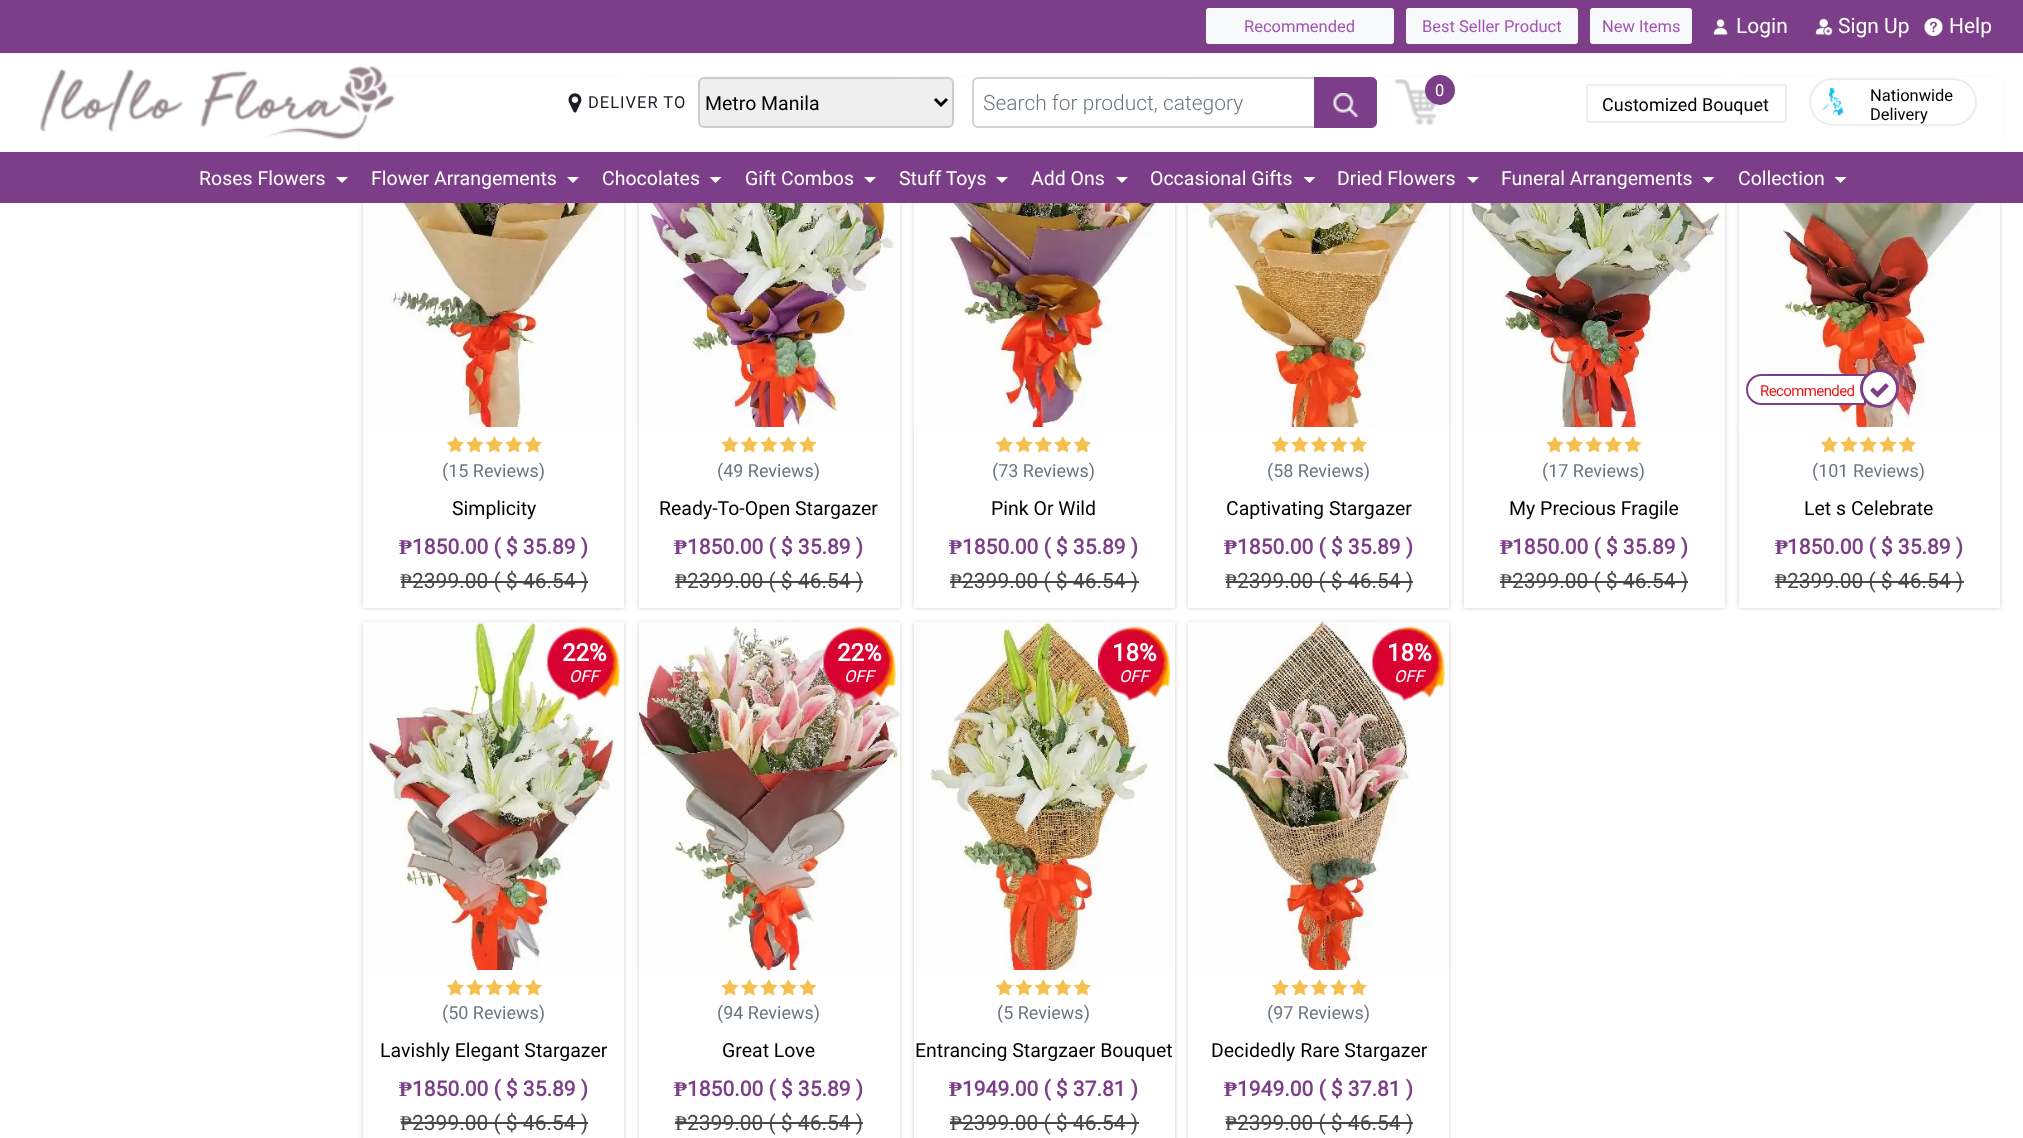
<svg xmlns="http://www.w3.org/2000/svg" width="2023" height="1138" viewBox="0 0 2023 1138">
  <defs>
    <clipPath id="clip1"><path d="M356 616H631V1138H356ZM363 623H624V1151H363Z" clip-rule="evenodd"/></clipPath>
    <clipPath id="clip2"><path d="M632 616H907V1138H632ZM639 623H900V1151H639Z" clip-rule="evenodd"/></clipPath>
    <clipPath id="clip3"><path d="M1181 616H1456V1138H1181ZM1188 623H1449V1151H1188Z" clip-rule="evenodd"/></clipPath>
  </defs>
  <rect width="100%" height="100%" fill="rgb(255,255,255)"/>
  <rect x="363" y="80" width="261" height="528" fill="rgba(0,0,0,0.2)" filter="blur(2px)"/>
  <rect x="639" y="80" width="261" height="528" fill="rgba(0,0,0,0.2)" filter="blur(2px)"/>
  <rect x="914" y="80" width="261" height="528" fill="rgba(0,0,0,0.2)" filter="blur(2px)"/>
  <rect x="1188" y="80" width="261" height="528" fill="rgba(0,0,0,0.2)" filter="blur(2px)"/>
  <rect x="1464" y="80" width="261" height="528" fill="rgba(0,0,0,0.2)" filter="blur(2px)"/>
  <rect x="1739" y="80" width="261" height="528" fill="rgba(0,0,0,0.2)" filter="blur(2px)"/>
  <rect x="360" y="77" width="1643" height="75" fill="rgb(255,255,255)"/>
  <rect x="0" y="0" width="2023" height="53" fill="rgb(124,62,136)"/>
  <rect x="1207" y="9" width="186" height="34" rx="2" fill="rgb(248,249,250)" stroke="rgb(248,249,250)" stroke-width="2"/>
  <text x="1244" y="32" font-family="Roboto" font-size="16.5" fill="rgb(163,84,179)">Recommended</text>
  <rect x="1407" y="9" width="170" height="34" rx="2" fill="rgb(248,249,250)" stroke="rgb(248,249,250)" stroke-width="2"/>
  <text x="1422" y="32" font-family="Roboto" font-size="16.5" fill="rgb(163,84,179)">Best Seller Product</text>
  <rect x="1591" y="9" width="100" height="34" rx="2" fill="rgb(248,249,250)" stroke="rgb(248,249,250)" stroke-width="2"/>
  <text x="1602" y="32" font-family="Roboto" font-size="16.5" fill="rgb(163,84,179)">New Items</text>
  <image x="1713" y="19" width="15" height="16" href="pic1.png"/>
  <text x="1736" y="33" font-family="Roboto" font-size="21" fill="rgb(255,255,255)">Login</text>
  <image x="1815" y="18" width="18" height="18" href="pic2.png"/>
  <text x="1838" y="33" font-family="Roboto" font-size="21" fill="rgb(255,255,255)">Sign Up</text>
  <image x="1924" y="18" width="19" height="18" href="pic3.png"/>
  <text x="1949" y="33" font-family="Roboto" font-size="21" fill="rgb(255,255,255)">Help</text>
  <image x="40" y="65" width="355" height="75" href="pic4.png"/>
  <image x="1394" y="79" width="43" height="46" href="pic5.png"/>
  <circle cx="1440" cy="90" r="15" fill="rgb(124,62,136)"/>
  <text x="1435" y="96" font-family="Roboto" font-size="16.5" fill="rgb(255,255,255)">0</text>
  <image x="568" y="93" width="14" height="20" href="pic6.png"/>
  <text x="588" y="108" font-family="Roboto" font-size="16.5" letter-spacing="1" fill="rgb(27,30,36)">DELIVER TO</text>
  <rect x="699" y="78" width="254" height="49" rx="5" fill="rgb(239,239,239)" stroke="rgb(204,204,204)" stroke-width="2"/>
  <path d="M935 99L941 105L947 99" fill="none" stroke="rgb(0,0,0)" stroke-width="3"/>
  <text x="705" y="110" font-family="Roboto" font-size="19.5" fill="rgb(0,0,0)">Metro Manila</text>
  <rect x="973" y="78" width="403" height="49" rx="5" fill="none" stroke="rgb(206,212,218)" stroke-width="2"/>
  <text x="983" y="110" font-family="Roboto" font-size="21" font-weight="300" fill="rgb(108,117,125)">Search for product, category</text>
  <path d="M1314 77H1371C1374.5 77 1377 79.5 1377 83V122C1377 125.5 1374.5 128 1371 128H1314Z" fill="rgb(124,62,136)"/>
  <image x="1333" y="93" width="25" height="24" href="pic7.png"/>
  <rect x="1587" y="85" width="199" height="37" rx="2" fill="none" stroke="rgb(237,237,237)" stroke-width="2"/>
  <text x="1602" y="111" font-family="Roboto" font-size="18" fill="rgb(0,0,0)">Customized Bouquet</text>
  <rect x="1810" y="79" width="166" height="46" rx="23" fill="none" stroke="rgb(237,237,237)" stroke-width="2"/>
  <image x="1822" y="87" width="22" height="29" href="pic8.png"/>
  <g font-family="Roboto" font-size="16.5" fill="rgb(0,0,0)">
    <text>
      <tspan x="1870" y="101">Nationwide</tspan>
      <tspan x="1870" y="120">Delivery</tspan>
    </text>
  </g>
  <rect x="0" y="152" width="2023" height="51" fill="rgb(124,62,136)"/>
  <text x="199" y="185" font-family="Roboto" font-size="19.5" fill="rgb(255,255,255)">Roses Flowers</text>
  <path d="M336 177H348L342 183Z" fill="rgb(255,255,255)"/>
  <text x="371" y="185" font-family="Roboto" font-size="19.5" fill="rgb(255,255,255)">Flower Arrangements</text>
  <path d="M567 177H579L573 183Z" fill="rgb(255,255,255)"/>
  <text x="602" y="185" font-family="Roboto" font-size="19.5" fill="rgb(255,255,255)">Chocolates</text>
  <path d="M709.5 177H721.5L715.5 183Z" fill="rgb(255,255,255)"/>
  <text x="745" y="185" font-family="Roboto" font-size="19.5" fill="rgb(255,255,255)">Gift Combos</text>
  <path d="M864 177H876L870 183Z" fill="rgb(255,255,255)"/>
  <text x="899" y="185" font-family="Roboto" font-size="19.5" fill="rgb(255,255,255)">Stuff Toys</text>
  <path d="M996 177H1008L1002 183Z" fill="rgb(255,255,255)"/>
  <text x="1031" y="185" font-family="Roboto" font-size="19.5" fill="rgb(255,255,255)">Add Ons</text>
  <path d="M1116 177H1128L1122 183Z" fill="rgb(255,255,255)"/>
  <text x="1150" y="185" font-family="Roboto" font-size="19.5" fill="rgb(255,255,255)">Occasional Gifts</text>
  <path d="M1303.5 177H1315.5L1309.5 183Z" fill="rgb(255,255,255)"/>
  <text x="1337" y="185" font-family="Roboto" font-size="19.5" fill="rgb(255,255,255)">Dried Flowers</text>
  <path d="M1467 177H1479L1473 183Z" fill="rgb(255,255,255)"/>
  <text x="1501" y="185" font-family="Roboto" font-size="19.5" fill="rgb(255,255,255)">Funeral Arrangements</text>
  <path d="M1702.5 177H1714.5L1708.5 183Z" fill="rgb(255,255,255)"/>
  <text x="1738" y="185" font-family="Roboto" font-size="19.5" fill="rgb(255,255,255)">Collection</text>
  <path d="M1834.5 177H1846.5L1840.5 183Z" fill="rgb(255,255,255)"/>
  <rect x="363" y="427" width="261" height="181" fill="rgb(255,255,255)"/>
  <image x="363" y="203" width="261" height="224" href="pic9.png"/>
  <image x="447" y="436" width="17" height="17" href="pic10.png"/>
  <image x="466" y="436" width="18" height="17" href="pic11.png"/>
  <image x="486" y="436" width="17" height="17" href="pic10.png"/>
  <image x="505" y="436" width="18" height="17" href="pic11.png"/>
  <image x="525" y="436" width="17" height="17" href="pic10.png"/>
  <text x="442" y="477" font-family="Roboto" font-size="18" fill="rgb(108,117,125)">(15 Reviews)</text>
  <text x="452" y="515" font-family="Roboto" font-size="19.5" fill="rgb(0,0,0)">Simplicity</text>
  <text x="399" y="554" font-family="Liberation Serif" font-size="21" font-weight="bold" fill="rgb(124,62,136)">₱</text>
  <text x="412" y="554" font-family="Roboto" font-size="21" font-weight="bold" fill="rgb(124,62,136)">1850.00 ( $ 35.89 )</text>
  <text x="400" y="588" font-family="Liberation Serif" font-size="21" fill="rgb(72,72,72)">₱</text>
  <text x="412" y="588" font-family="Roboto" font-size="21" fill="rgb(72,72,72)">2399.00 ( $ 46.54 )</text>
  <rect x="401" y="581" width="187" height="2" fill="rgb(72,72,72)"/>
  <rect x="639" y="427" width="261" height="181" fill="rgb(255,255,255)"/>
  <image x="639" y="203" width="261" height="224" href="pic12.png"/>
  <image x="721" y="436" width="18" height="17" href="pic11.png"/>
  <image x="741" y="436" width="17" height="17" href="pic10.png"/>
  <image x="760" y="436" width="18" height="17" href="pic11.png"/>
  <image x="780" y="436" width="17" height="17" href="pic10.png"/>
  <image x="799" y="436" width="18" height="17" href="pic11.png"/>
  <text x="717" y="477" font-family="Roboto" font-size="18" fill="rgb(108,117,125)">(49 Reviews)</text>
  <text x="659" y="515" font-family="Roboto" font-size="19.5" fill="rgb(0,0,0)">Ready-To-Open Stargazer</text>
  <text x="674" y="554" font-family="Liberation Serif" font-size="21" font-weight="bold" fill="rgb(124,62,136)">₱</text>
  <text x="687" y="554" font-family="Roboto" font-size="21" font-weight="bold" fill="rgb(124,62,136)">1850.00 ( $ 35.89 )</text>
  <text x="675" y="588" font-family="Liberation Serif" font-size="21" fill="rgb(72,72,72)">₱</text>
  <text x="687" y="588" font-family="Roboto" font-size="21" fill="rgb(72,72,72)">2399.00 ( $ 46.54 )</text>
  <rect x="675" y="581" width="188" height="2" fill="rgb(72,72,72)"/>
  <rect x="914" y="203" width="261" height="405" fill="rgb(255,255,255)"/>
  <image x="913" y="203" width="262" height="224" href="pic13.png"/>
  <image x="996" y="436" width="17" height="17" href="pic10.png"/>
  <image x="1015" y="436" width="18" height="17" href="pic11.png"/>
  <image x="1035" y="436" width="17" height="17" href="pic10.png"/>
  <image x="1054" y="436" width="18" height="17" href="pic11.png"/>
  <image x="1074" y="436" width="17" height="17" href="pic10.png"/>
  <text x="992" y="477" font-family="Roboto" font-size="18" fill="rgb(108,117,125)">(73 Reviews)</text>
  <text x="991" y="515" font-family="Roboto" font-size="19.5" fill="rgb(0,0,0)">Pink Or Wild</text>
  <text x="949" y="554" font-family="Liberation Serif" font-size="21" font-weight="bold" fill="rgb(124,62,136)">₱</text>
  <text x="962" y="554" font-family="Roboto" font-size="21" font-weight="bold" fill="rgb(124,62,136)">1850.00 ( $ 35.89 )</text>
  <text x="950" y="588" font-family="Liberation Serif" font-size="21" fill="rgb(72,72,72)">₱</text>
  <text x="962" y="588" font-family="Roboto" font-size="21" fill="rgb(72,72,72)">2399.00 ( $ 46.54 )</text>
  <rect x="950" y="581" width="189" height="2" fill="rgb(72,72,72)"/>
  <rect x="1188" y="427" width="261" height="181" fill="rgb(255,255,255)"/>
  <image x="1188" y="203" width="261" height="224" href="pic14.png"/>
  <image x="1272" y="436" width="17" height="17" href="pic10.png"/>
  <image x="1291" y="436" width="18" height="17" href="pic11.png"/>
  <image x="1311" y="436" width="17" height="17" href="pic10.png"/>
  <image x="1330" y="436" width="18" height="17" href="pic11.png"/>
  <image x="1350" y="436" width="17" height="17" href="pic10.png"/>
  <text x="1267" y="477" font-family="Roboto" font-size="18" fill="rgb(108,117,125)">(58 Reviews)</text>
  <text x="1226" y="515" font-family="Roboto" font-size="19.5" fill="rgb(0,0,0)">Captivating Stargazer</text>
  <text x="1224" y="554" font-family="Liberation Serif" font-size="21" font-weight="bold" fill="rgb(124,62,136)">₱</text>
  <text x="1237" y="554" font-family="Roboto" font-size="21" font-weight="bold" fill="rgb(124,62,136)">1850.00 ( $ 35.89 )</text>
  <text x="1225" y="588" font-family="Liberation Serif" font-size="21" fill="rgb(72,72,72)">₱</text>
  <text x="1237" y="588" font-family="Roboto" font-size="21" fill="rgb(72,72,72)">2399.00 ( $ 46.54 )</text>
  <rect x="1226" y="581" width="187" height="2" fill="rgb(72,72,72)"/>
  <rect x="1464" y="427" width="261" height="181" fill="rgb(255,255,255)"/>
  <image x="1464" y="203" width="261" height="224" href="pic15.png"/>
  <image x="1546" y="436" width="18" height="17" href="pic11.png"/>
  <image x="1566" y="436" width="17" height="17" href="pic10.png"/>
  <image x="1585" y="436" width="18" height="17" href="pic11.png"/>
  <image x="1605" y="436" width="17" height="17" href="pic10.png"/>
  <image x="1624" y="436" width="18" height="17" href="pic11.png"/>
  <text x="1542" y="477" font-family="Roboto" font-size="18" fill="rgb(108,117,125)">(17 Reviews)</text>
  <text x="1509" y="515" font-family="Roboto" font-size="19.5" fill="rgb(0,0,0)">My Precious Fragile</text>
  <text x="1500" y="554" font-family="Liberation Serif" font-size="21" font-weight="bold" fill="rgb(124,62,136)">₱</text>
  <text x="1512" y="554" font-family="Roboto" font-size="21" font-weight="bold" fill="rgb(124,62,136)">1850.00 ( $ 35.89 )</text>
  <text x="1500" y="588" font-family="Liberation Serif" font-size="21" fill="rgb(72,72,72)">₱</text>
  <text x="1512" y="588" font-family="Roboto" font-size="21" fill="rgb(72,72,72)">2399.00 ( $ 46.54 )</text>
  <rect x="1500" y="581" width="188" height="2" fill="rgb(72,72,72)"/>
  <rect x="1739" y="203" width="261" height="405" fill="rgb(255,255,255)"/>
  <image x="1738" y="203" width="262" height="224" href="pic16.png"/>
  <path d="M1761.5 375H1865V404H1761.5C1753.5 404 1747 397.5 1747 389.5C1747 381.5 1753.5 375 1761.5 375Z" fill="rgb(255,255,255)" stroke="rgb(124,62,136)" stroke-width="2"/>
  <text x="1760" y="396" font-family="Roboto" font-size="15" letter-spacing="-0.6" fill="rgb(232,25,25)">Recommended</text>
  <circle cx="1879.5" cy="388.5" r="18" fill="rgb(255,255,255)" stroke="rgb(124,62,136)" stroke-width="3"/>
  <image x="1870" y="383" width="19" height="15" href="pic17.png"/>
  <image x="1821" y="436" width="17" height="17" href="pic10.png"/>
  <image x="1840" y="436" width="18" height="17" href="pic11.png"/>
  <image x="1860" y="436" width="17" height="17" href="pic10.png"/>
  <image x="1879" y="436" width="18" height="17" href="pic11.png"/>
  <image x="1899" y="436" width="17" height="17" href="pic10.png"/>
  <text x="1812" y="477" font-family="Roboto" font-size="18" fill="rgb(108,117,125)">(101 Reviews)</text>
  <text x="1804" y="515" font-family="Roboto" font-size="19.5" fill="rgb(0,0,0)">Let s Celebrate</text>
  <text x="1775" y="554" font-family="Liberation Serif" font-size="21" font-weight="bold" fill="rgb(124,62,136)">₱</text>
  <text x="1787" y="554" font-family="Roboto" font-size="21" font-weight="bold" fill="rgb(124,62,136)">1850.00 ( $ 35.89 )</text>
  <text x="1775" y="588" font-family="Liberation Serif" font-size="21" fill="rgb(72,72,72)">₱</text>
  <text x="1787" y="588" font-family="Roboto" font-size="21" fill="rgb(72,72,72)">2399.00 ( $ 46.54 )</text>
  <rect x="1775" y="581" width="189" height="2" fill="rgb(72,72,72)"/>
  <g clip-path="url(#clip1)">
    <rect x="363" y="623" width="261" height="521" fill="rgba(0,0,0,0.2)" filter="blur(2px)"/>
  </g>
  <image x="363" y="622" width="261" height="348" href="pic18.png"/>
  <image x="547" y="626" width="73" height="76" href="pic19.png"/>
  <text x="562" y="661" font-family="Roboto" font-size="24" font-weight="bold" fill="rgb(255,255,255)">22%</text>
  <text x="569" y="682" font-family="Roboto" font-size="16.5" font-style="italic" fill="rgb(255,255,255)">OFF</text>
  <image x="447" y="979" width="17" height="17" href="pic10.png"/>
  <image x="466" y="979" width="18" height="17" href="pic11.png"/>
  <image x="486" y="979" width="17" height="17" href="pic10.png"/>
  <image x="505" y="979" width="18" height="17" href="pic11.png"/>
  <image x="525" y="979" width="17" height="17" href="pic10.png"/>
  <text x="442" y="1019" font-family="Roboto" font-size="18" fill="rgb(108,117,125)">(50 Reviews)</text>
  <text x="380" y="1057" font-family="Roboto" font-size="19.5" fill="rgb(0,0,0)">Lavishly Elegant Stargazer</text>
  <text x="399" y="1096" font-family="Liberation Serif" font-size="21" font-weight="bold" fill="rgb(124,62,136)">₱</text>
  <text x="412" y="1096" font-family="Roboto" font-size="21" font-weight="bold" fill="rgb(124,62,136)">1850.00 ( $ 35.89 )</text>
  <text x="400" y="1130" font-family="Liberation Serif" font-size="21" fill="rgb(72,72,72)">₱</text>
  <rect x="401" y="1122" width="187" height="2" fill="rgb(72,72,72)"/>
  <text x="412" y="1130" font-family="Roboto" font-size="21" fill="rgb(72,72,72)">2399.00 ( $ 46.54 )</text>
  <g clip-path="url(#clip2)">
    <rect x="639" y="623" width="261" height="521" fill="rgba(0,0,0,0.2)" filter="blur(2px)"/>
  </g>
  <image x="639" y="622" width="261" height="348" href="pic20.png"/>
  <image x="823" y="626" width="73" height="75" href="pic21.png"/>
  <text x="837" y="661" font-family="Roboto" font-size="24" font-weight="bold" fill="rgb(255,255,255)">22%</text>
  <text x="844" y="682" font-family="Roboto" font-size="16.5" font-style="italic" fill="rgb(255,255,255)">OFF</text>
  <image x="721" y="979" width="18" height="17" href="pic11.png"/>
  <image x="741" y="979" width="17" height="17" href="pic10.png"/>
  <image x="760" y="979" width="18" height="17" href="pic11.png"/>
  <image x="780" y="979" width="17" height="17" href="pic10.png"/>
  <image x="799" y="979" width="18" height="17" href="pic11.png"/>
  <text x="717" y="1019" font-family="Roboto" font-size="18" fill="rgb(108,117,125)">(94 Reviews)</text>
  <text x="722" y="1057" font-family="Roboto" font-size="19.5" fill="rgb(0,0,0)">Great Love</text>
  <text x="674" y="1096" font-family="Liberation Serif" font-size="21" font-weight="bold" fill="rgb(124,62,136)">₱</text>
  <text x="687" y="1096" font-family="Roboto" font-size="21" font-weight="bold" fill="rgb(124,62,136)">1850.00 ( $ 35.89 )</text>
  <text x="675" y="1130" font-family="Liberation Serif" font-size="21" fill="rgb(72,72,72)">₱</text>
  <rect x="675" y="1122" width="188" height="2" fill="rgb(72,72,72)"/>
  <text x="687" y="1130" font-family="Roboto" font-size="21" fill="rgb(72,72,72)">2399.00 ( $ 46.54 )</text>
  <rect x="914" y="623" width="261" height="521" fill="rgba(0,0,0,0.2)" filter="blur(2px)"/>
  <rect x="914" y="623" width="261" height="515" fill="rgb(255,255,255)"/>
  <image x="914" y="622" width="260" height="348" href="pic22.png"/>
  <image x="1098" y="626" width="72" height="76" href="pic23.png"/>
  <text x="1112" y="661" font-family="Roboto" font-size="24" font-weight="bold" fill="rgb(255,255,255)">18%</text>
  <text x="1119" y="682" font-family="Roboto" font-size="16.5" font-style="italic" fill="rgb(255,255,255)">OFF</text>
  <image x="996" y="979" width="17" height="17" href="pic10.png"/>
  <image x="1015" y="979" width="18" height="17" href="pic11.png"/>
  <image x="1035" y="979" width="17" height="17" href="pic10.png"/>
  <image x="1054" y="979" width="18" height="17" href="pic11.png"/>
  <image x="1074" y="979" width="17" height="17" href="pic10.png"/>
  <text x="997" y="1019" font-family="Roboto" font-size="18" fill="rgb(108,117,125)">(5 Reviews)</text>
  <text x="915" y="1057" font-family="Roboto" font-size="19.5" fill="rgb(0,0,0)">Entrancing Stargzaer Bouquet</text>
  <text x="949" y="1096" font-family="Liberation Serif" font-size="21" font-weight="bold" fill="rgb(124,62,136)">₱</text>
  <text x="962" y="1096" font-family="Roboto" font-size="21" font-weight="bold" fill="rgb(124,62,136)">1949.00 ( $ 37.81 )</text>
  <text x="950" y="1130" font-family="Liberation Serif" font-size="21" fill="rgb(72,72,72)">₱</text>
  <rect x="950" y="1122" width="189" height="2" fill="rgb(72,72,72)"/>
  <text x="962" y="1130" font-family="Roboto" font-size="21" fill="rgb(72,72,72)">2399.00 ( $ 46.54 )</text>
  <g clip-path="url(#clip3)">
    <rect x="1188" y="623" width="261" height="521" fill="rgba(0,0,0,0.2)" filter="blur(2px)"/>
  </g>
  <image x="1188" y="622" width="261" height="348" href="pic24.png"/>
  <image x="1372" y="626" width="73" height="76" href="pic25.png"/>
  <text x="1387" y="661" font-family="Roboto" font-size="24" font-weight="bold" fill="rgb(255,255,255)">18%</text>
  <text x="1394" y="682" font-family="Roboto" font-size="16.5" font-style="italic" fill="rgb(255,255,255)">OFF</text>
  <image x="1272" y="979" width="17" height="17" href="pic10.png"/>
  <image x="1291" y="979" width="18" height="17" href="pic11.png"/>
  <image x="1311" y="979" width="17" height="17" href="pic10.png"/>
  <image x="1330" y="979" width="18" height="17" href="pic11.png"/>
  <image x="1350" y="979" width="17" height="17" href="pic10.png"/>
  <text x="1267" y="1019" font-family="Roboto" font-size="18" fill="rgb(108,117,125)">(97 Reviews)</text>
  <text x="1211" y="1057" font-family="Roboto" font-size="19.5" fill="rgb(0,0,0)">Decidedly Rare Stargazer</text>
  <text x="1224" y="1096" font-family="Liberation Serif" font-size="21" font-weight="bold" fill="rgb(124,62,136)">₱</text>
  <text x="1237" y="1096" font-family="Roboto" font-size="21" font-weight="bold" fill="rgb(124,62,136)">1949.00 ( $ 37.81 )</text>
  <text x="1225" y="1130" font-family="Liberation Serif" font-size="21" fill="rgb(72,72,72)">₱</text>
  <rect x="1226" y="1122" width="187" height="2" fill="rgb(72,72,72)"/>
  <text x="1237" y="1130" font-family="Roboto" font-size="21" fill="rgb(72,72,72)">2399.00 ( $ 46.54 )</text>
</svg>
